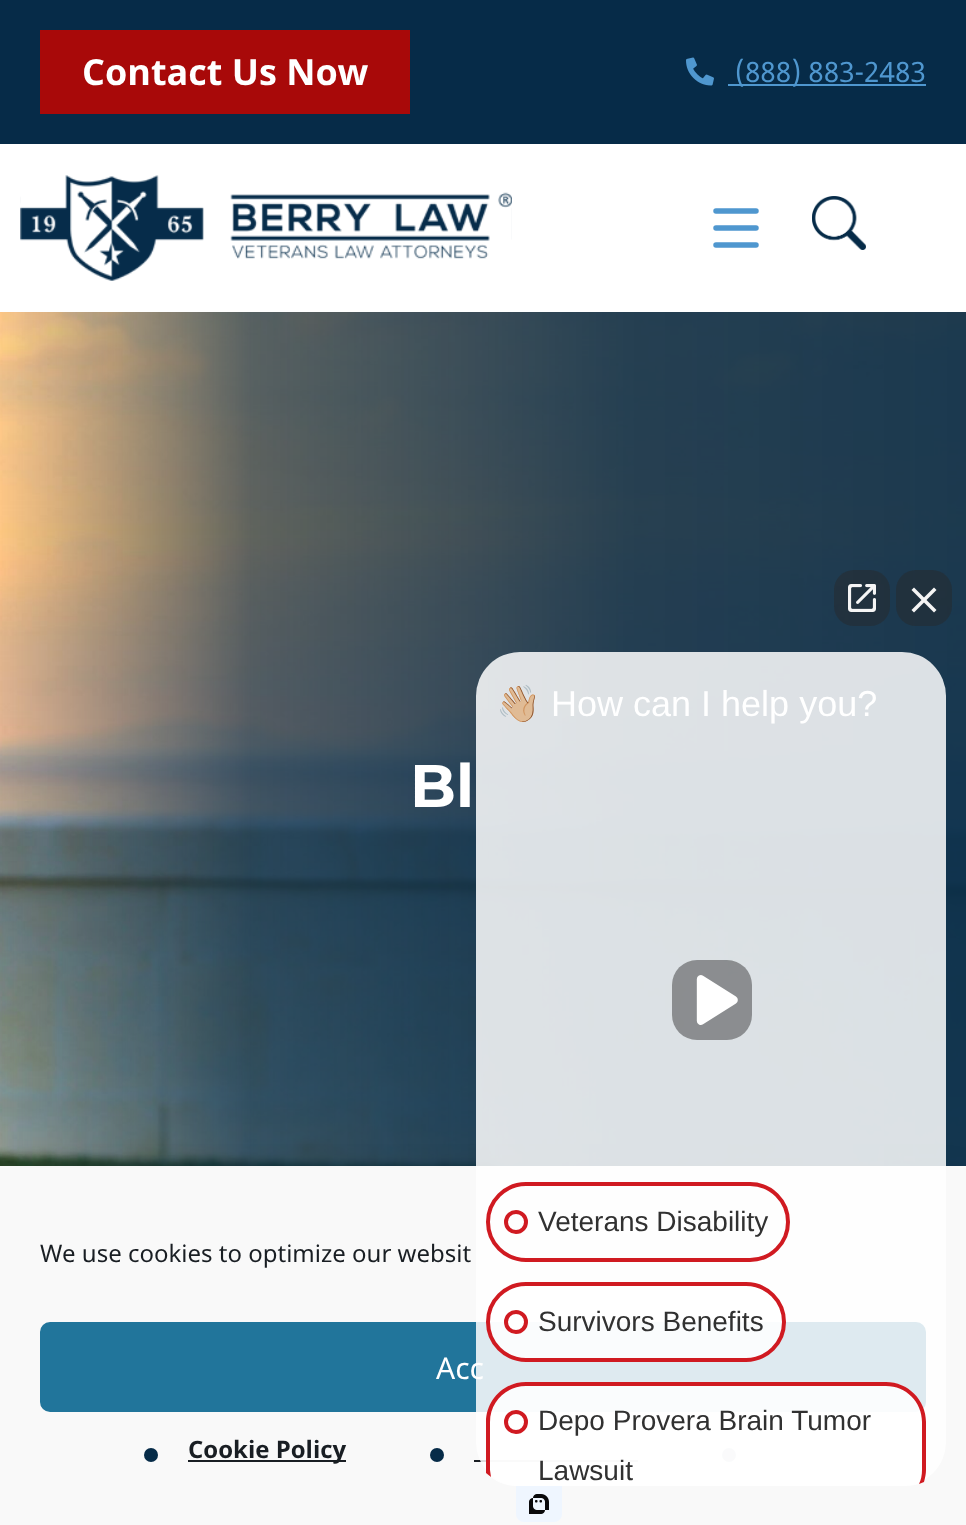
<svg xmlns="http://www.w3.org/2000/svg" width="966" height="1525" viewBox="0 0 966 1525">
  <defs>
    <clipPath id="clip1"><path d="M476 744H946V1446C946 1468 928 1486 906 1486H516C494 1486 476 1468 476 1446Z"/></clipPath>
  </defs>
  <rect width="100%" height="100%" fill="rgb(255,255,255)"/>
  <rect x="0" y="0" width="966" height="144" fill="rgb(6,43,72)"/>
  <rect x="40" y="30" width="370" height="84" fill="rgb(168,9,9)"/>
  <text x="82" y="85" font-family="Noto Sans" font-size="36" font-weight="bold" fill="rgb(255,255,255)">Contact Us Now</text>
  <image x="686" y="57" width="28" height="29" href="pic1.png"/>
  <rect x="728" y="84" width="198" height="2" fill="rgb(79,151,207)"/>
  <text x="735" y="82" font-family="Noto Sans" font-size="28" fill="rgb(79,151,207)">(888) 883-2483</text>
  <image x="20" y="175" width="492" height="106" href="pic2.png"/>
  <path d="M756 211H716M756 228H716M716 245H756" fill="none" stroke="rgb(79,151,207)" stroke-width="5.5" stroke-linecap="round"/>
  <image x="812" y="196" width="54" height="54" href="pic3.png"/>
  <image x="0" y="312" width="966" height="854" href="pic4.png"/>
  <text x="410" y="807" font-family="Montserrat" font-size="60" font-weight="bold" fill="rgb(255,255,255)">Bl</text>
  <rect x="0" y="1186" width="966" height="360" fill="rgba(0,0,0,0.19)" filter="blur(20px)"/>
  <rect x="0" y="1168" width="966" height="357" fill="rgb(249,249,249)"/>
  <rect x="41" y="1323" width="884" height="88" rx="9" fill="rgb(33,117,155)" stroke="rgb(33,117,155)" stroke-width="2"/>
  <text x="436" y="1379" font-family="Noto Sans" font-size="30" fill="rgb(255,255,255)">Acc</text>
  <rect x="474" y="1460" width="164" height="2" fill="rgb(25,30,35)"/>
  <circle cx="729" cy="1455" r="7" fill="rgb(6,43,72)"/>
  <rect x="476" y="652" width="470" height="834" rx="44" fill="rgba(255,255,255,0.85)"/>
  <rect x="834" y="570" width="56" height="56" rx="20" fill="rgba(39,39,39,0.45)"/>
  <image x="848" y="584" width="28" height="28" href="pic5.png"/>
  <rect x="896" y="570" width="56" height="56" rx="20" fill="rgba(39,39,39,0.45)"/>
  <path d="M911.5 590L914 587.5L936.5 610L934 612.5Z" fill="rgb(245,245,245)"/>
  <path d="M934 587.5L936.5 590L914 612.5L911.5 610Z" fill="rgb(245,245,245)"/>
  <text x="496" y="716" font-family="Noto Color Emoji" font-size="36" fill="rgb(255,255,255)">👋🏼</text>
  <text x="551" y="716" font-family="Liberation Sans" font-size="36" fill="rgb(255,255,255)">How can I help you?</text>
  <image x="672" y="960" width="80" height="80" href="pic6.png"/>
  <rect x="488" y="1184" width="300" height="76" rx="38" fill="none" stroke="rgb(208,26,33)" stroke-width="4"/>
  <circle cx="516" cy="1222" r="10" fill="none" stroke="rgb(208,26,33)" stroke-width="4"/>
  <text x="538" y="1231" font-family="Liberation Sans" font-size="28" fill="rgb(49,49,49)">Veterans Disability</text>
  <rect x="488" y="1284" width="296" height="76" rx="38" fill="rgba(255,255,255,0.85)" stroke="rgb(208,26,33)" stroke-width="4"/>
  <circle cx="516" cy="1322" r="10" fill="rgb(255,255,255)" stroke="rgb(208,26,33)" stroke-width="4"/>
  <text x="538" y="1331" font-family="Liberation Sans" font-size="28" fill="rgb(49,49,49)">Survivors Benefits</text>
  <image x="516" y="1486" width="46" height="36" href="pic7.png"/>
  <g clip-path="url(#clip1)">
    <rect x="486" y="1382" width="440" height="128" rx="40" fill="rgba(255,255,255,0.85)"/>
  </g>
  <path d="M526 1382C504 1382 486 1400 486 1422V1473L491 1477L490 1470V1422C490 1402 506 1386 526 1386H886C906 1386 922 1402 922 1422V1470C922 1475 921 1480 919 1484L924 1482C925 1478 926 1474 926 1470V1422C926 1400 908 1382 886 1382Z" fill="rgb(208,26,33)"/>
  <circle cx="516" cy="1422" r="10" fill="rgb(255,255,255)" stroke="rgb(208,26,33)" stroke-width="4"/>
  <g font-family="Liberation Sans" font-size="28" fill="rgb(49,49,49)">
    <text>
      <tspan x="538" y="1430">Depo Provera Brain Tumor</tspan>
      <tspan x="538" y="1480">Lawsuit</tspan>
    </text>
  </g>
  <text x="40" y="1262" font-family="Noto Sans" font-size="24" fill="rgb(25,30,35)">We use cookies to optimize our websit</text>
  <circle cx="151" cy="1455" r="7" fill="rgb(6,43,72)"/>
  <rect x="188" y="1460" width="158" height="2" fill="rgb(25,30,35)"/>
  <text x="188" y="1458" font-family="Noto Sans" font-size="24" font-weight="bold" fill="rgb(25,30,35)">Cookie Policy</text>
  <circle cx="437" cy="1455" r="7" fill="rgb(6,43,72)"/>
</svg>
